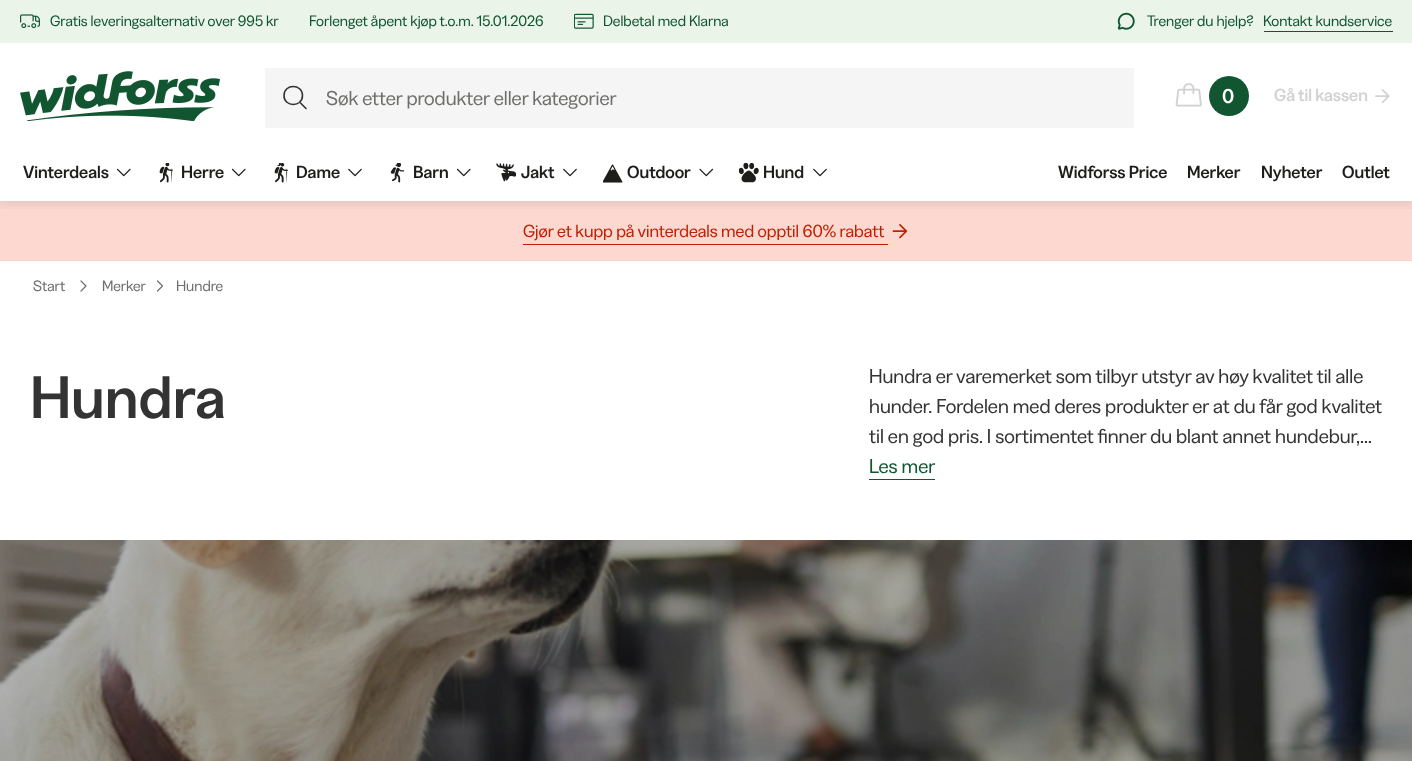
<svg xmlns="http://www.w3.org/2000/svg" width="1412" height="761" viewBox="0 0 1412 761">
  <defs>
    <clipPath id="clip1"><rect x="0" y="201" width="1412" height="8"/></clipPath>
  </defs>
  <rect width="100%" height="100%" fill="rgb(255,255,255)"/>
  <rect x="0" y="201" width="1412" height="60" fill="rgb(253,216,209)"/>
  <g clip-path="url(#clip1)">
    <rect x="-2" y="40" width="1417" height="164" fill="rgba(0,0,0,0.1)" filter="blur(6px)"/>
  </g>
  <rect x="0" y="0" width="1412" height="43" fill="rgb(235,244,233)"/>
  <image x="20" y="14" width="20" height="15" href="pic1.png"/>
  <g font-family="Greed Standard" font-size="15" fill="rgb(18,85,49)">
    <text x="50" y="26">Gratis leveringsalternativ over 995 kr</text>
    <text x="309" y="26">Forlenget åpent kjøp t.o.m. 15.01.2026</text>
  </g>
  <image x="574" y="13" width="20" height="16" href="pic2.png"/>
  <text x="603" y="26" font-family="Greed Standard" font-size="15" fill="rgb(18,85,49)">Delbetal med Klarna</text>
  <image x="1117" y="12" width="18" height="18" href="pic3.png"/>
  <text x="1147" y="26" font-family="Greed Standard" font-size="15" fill="rgb(18,85,49)">Trenger du hjelp?</text>
  <rect x="1264" y="31" width="129" height="1" fill="rgb(18,85,49)"/>
  <text x="1263" y="26" font-family="Greed Standard" font-size="15" fill="rgb(18,85,49)">Kontakt kundservice</text>
  <image x="20" y="71" width="200" height="50" href="pic4.png"/>
  <rect x="265" y="68" width="869" height="60" fill="rgb(245,245,245)"/>
  <path d="M306 108.5L299.5 102M302.5 95.5C302.5 107.5 284 107.5 284 95.5C284 83.5 302.5 83.5 302.5 95.5" fill="none" stroke="rgb(51,51,51)" stroke-width="1.6" stroke-linecap="round" stroke-linejoin="round"/>
  <text x="326" y="105" font-family="Greed Standard" font-size="20" fill="rgb(111,111,109)">Søk etter produkter eller kategorier</text>
  <image x="1175" y="83" width="27" height="24" href="pic5.png"/>
  <circle cx="1229" cy="96" r="20" fill="rgb(18,85,49)"/>
  <text x="1222" y="103" font-family="Greed Standard" font-size="20" font-weight="500" fill="rgb(255,255,255)">0</text>
  <text x="1274" y="101" font-family="Greed Standard" font-size="17.5" font-weight="500" fill="rgb(210,210,209)">Gå til kassen</text>
  <image x="1375" y="89" width="15" height="15" href="pic6.png"/>
  <text x="23" y="178" font-family="Greed Standard" font-size="17.5" font-weight="500" fill="rgb(29,29,27)">Vinterdeals</text>
  <image x="116" y="168" width="15" height="9" href="pic7.png"/>
  <image x="159" y="163" width="14" height="20" href="pic8.png"/>
  <text x="181" y="178" font-family="Greed Standard" font-size="17.5" font-weight="500" fill="rgb(29,29,27)">Herre</text>
  <image x="231" y="168" width="15" height="9" href="pic7.png"/>
  <image x="274" y="163" width="14" height="20" href="pic9.png"/>
  <text x="296" y="178" font-family="Greed Standard" font-size="17.5" font-weight="500" fill="rgb(29,29,27)">Dame</text>
  <image x="348" y="168" width="14" height="9" href="pic10.png"/>
  <image x="390" y="163" width="15" height="20" href="pic11.png"/>
  <text x="413" y="178" font-family="Greed Standard" font-size="17.5" font-weight="500" fill="rgb(29,29,27)">Barn</text>
  <image x="456" y="168" width="15" height="9" href="pic7.png"/>
  <image x="496" y="163" width="20" height="19" href="pic12.png"/>
  <text x="521" y="178" font-family="Greed Standard" font-size="17.5" font-weight="500" fill="rgb(29,29,27)">Jakt</text>
  <image x="563" y="168" width="14" height="9" href="pic10.png"/>
  <image x="603" y="164" width="20" height="19" href="pic13.png"/>
  <text x="627" y="178" font-family="Greed Standard" font-size="17.5" font-weight="500" fill="rgb(29,29,27)">Outdoor</text>
  <image x="699" y="168" width="15" height="9" href="pic14.png"/>
  <image x="739" y="163" width="20" height="20" href="pic15.png"/>
  <text x="763" y="178" font-family="Greed Standard" font-size="17.5" font-weight="500" fill="rgb(29,29,27)">Hund</text>
  <image x="813" y="168" width="14" height="9" href="pic10.png"/>
  <g font-family="Greed Standard" font-size="17.5" font-weight="500" fill="rgb(29,29,27)">
    <text x="1058" y="178">Widforss Price</text>
    <text x="1187" y="178">Merker</text>
    <text x="1261" y="178">Nyheter</text>
    <text x="1342" y="178">Outlet</text>
  </g>
  <rect x="523" y="244" width="365" height="1" fill="rgb(190,33,0)"/>
  <text x="523" y="237" font-family="Greed Standard" font-size="17.5" fill="rgb(190,33,0)">Gjør et kupp på vinterdeals med opptil 60% rabatt</text>
  <image x="892" y="224" width="16" height="15" href="pic16.png"/>
  <text x="33" y="291" font-family="Greed Standard" font-size="15" fill="rgb(111,111,109)">Start</text>
  <path d="M81 291L86 286L81 281" fill="none" stroke="rgb(111,111,109)" stroke-width="1.2" stroke-linecap="round" stroke-linejoin="round"/>
  <text x="102" y="291" font-family="Greed Standard" font-size="15" fill="rgb(111,111,109)">Merker</text>
  <path d="M157.5 291L162.5 286L157.5 281" fill="none" stroke="rgb(111,111,109)" stroke-width="1.2" stroke-linecap="round" stroke-linejoin="round"/>
  <text x="176" y="291" font-family="Greed Standard" font-size="15" fill="rgb(111,111,109)">Hundre</text>
  <text x="30" y="418" font-family="Greed Standard" font-size="60" font-weight="500" letter-spacing="0.5" fill="rgb(51,51,51)">Hundra</text>
  <g font-family="Greed Standard" font-size="20" fill="rgb(51,51,51)">
    <text>
      <tspan x="869" y="383">Hundra er varemerket som tilbyr utstyr av høy kvalitet til alle</tspan>
      <tspan x="869" y="413">hunder. Fordelen med deres produkter er at du får god kvalitet</tspan>
      <tspan x="869" y="443">til en god pris. I sortimentet finner du blant annet hundebur,…</tspan>
    </text>
  </g>
  <rect x="869" y="479" width="66" height="1" fill="rgb(18,85,49)"/>
  <text x="869" y="473" font-family="Greed Standard" font-size="20" fill="rgb(18,85,49)">Les mer</text>
  <image x="0" y="540" width="1412" height="221" href="pic17.png"/>
</svg>
